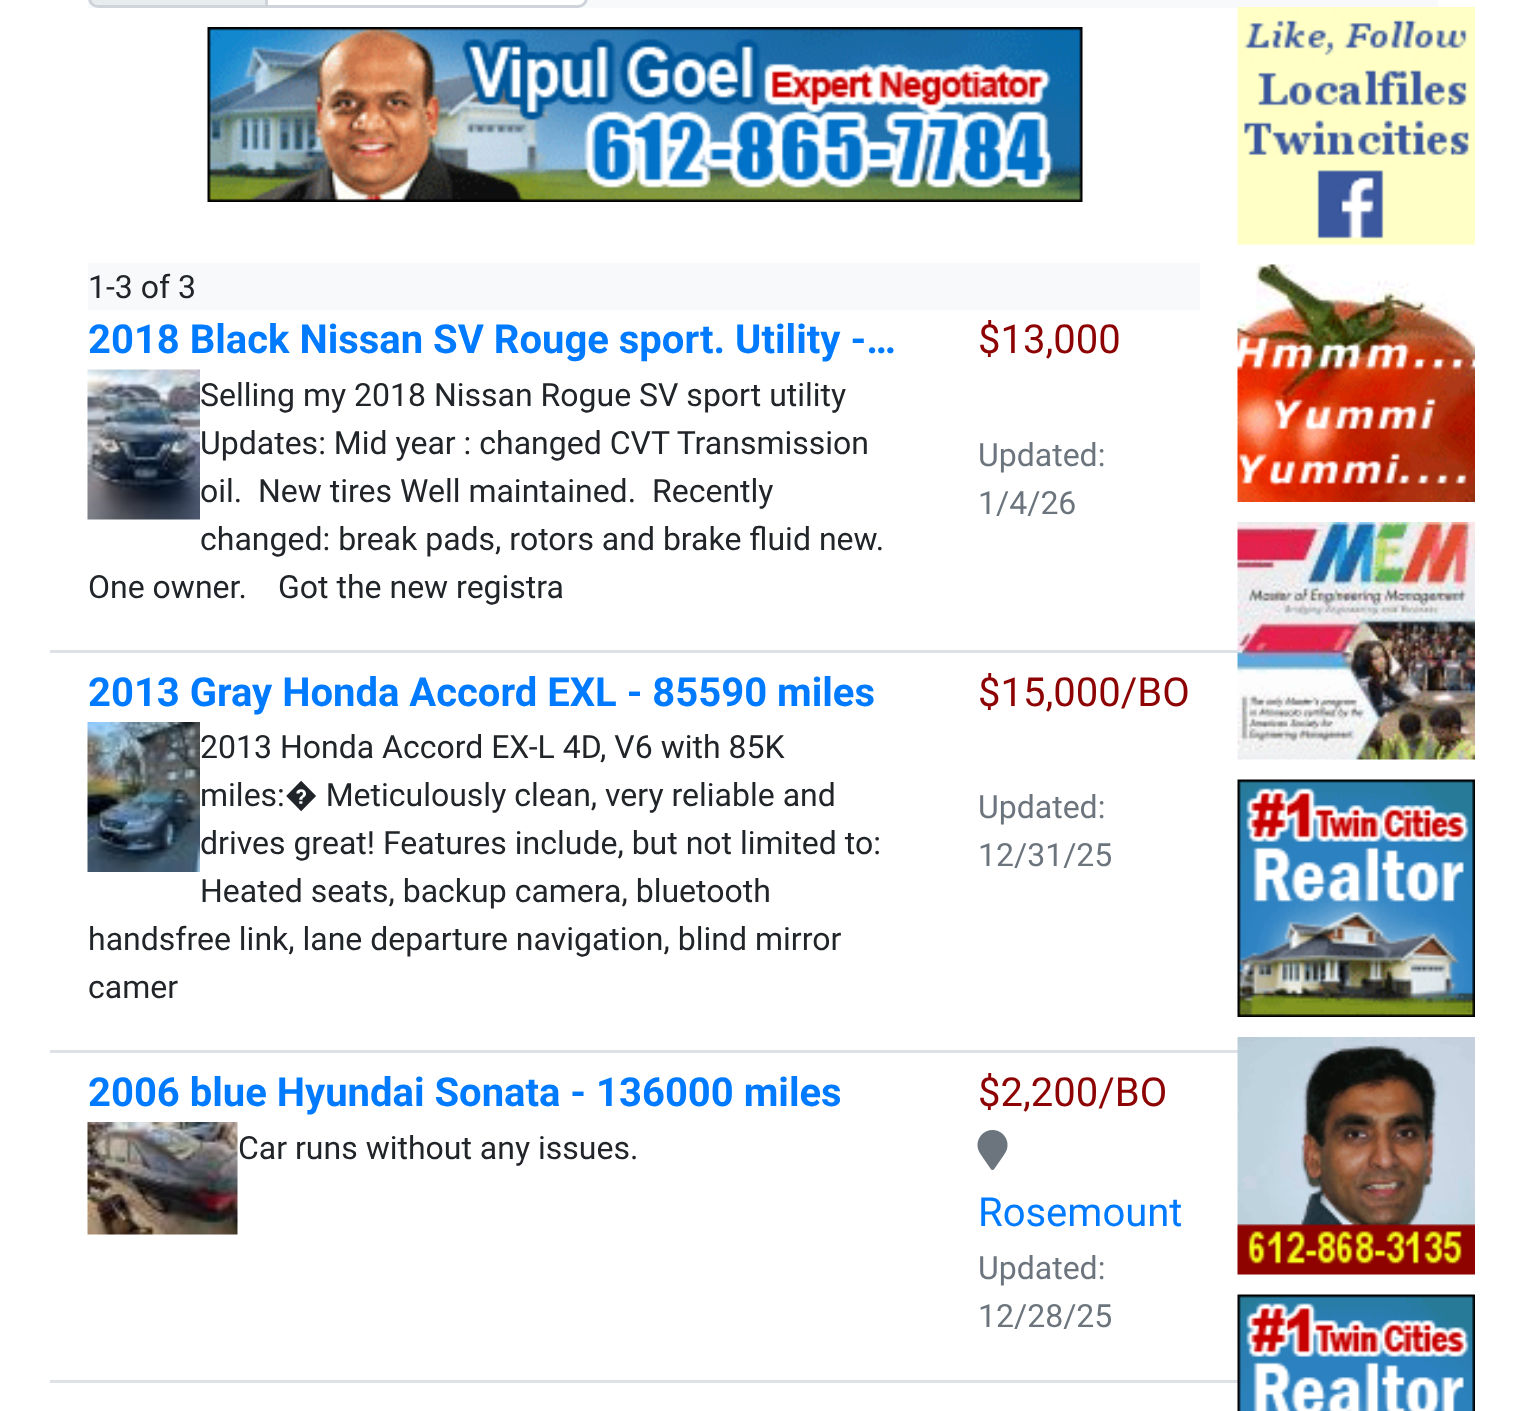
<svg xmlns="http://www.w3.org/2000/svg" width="1524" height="1411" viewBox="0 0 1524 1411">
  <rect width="100%" height="100%" fill="rgb(255,255,255)"/>
  <rect x="88" y="0" width="1350" height="8" fill="rgb(248,249,250)"/>
  <path d="M98-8H265V5H98C93.5 5 90 1.5 90-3V0C90-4.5 93.5-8 98-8Z" fill="rgb(233,236,239)"/>
  <path d="M98-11.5H266.5V6.5H98C93.5 6.5 89.5 2.5 89.5-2V-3C89.5-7.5 93.5-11.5 98-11.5Z" fill="none" stroke="rgb(206,212,218)" stroke-width="3"/>
  <path d="M266.5-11.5H578C582.5-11.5 586.5-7.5 586.5-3V-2C586.5 2.5 582.5 6.5 578 6.5H266.5Z" fill="rgb(255,255,255)" stroke="rgb(206,212,218)" stroke-width="3"/>
  <image x="207" y="27" width="876" height="175" href="pic1.png"/>
  <rect x="88" y="263" width="1112" height="47" fill="rgb(248,249,250)"/>
  <text x="88" y="298" font-family="Roboto" font-size="32" fill="rgb(33,37,41)">1-3 of 3</text>
  <rect x="50" y="650" width="1188" height="3" fill="rgb(222,226,230)"/>
  <text x="88" y="353" font-family="Roboto" font-size="40" font-weight="bold" fill="rgb(0,123,255)">2018 Black Nissan SV Rouge sport. Utility -…</text>
  <image x="87" y="369" width="113" height="151" href="pic2.png"/>
  <g font-family="Roboto" font-size="32" fill="rgb(33,37,41)">
    <text>
      <tspan x="200" y="406">Selling my 2018 Nissan Rogue SV sport utility</tspan>
      <tspan x="200" y="454">Updates: Mid year : changed CVT Transmission</tspan>
      <tspan x="200" y="502">oil.</tspan>
    </text>
    <text x="258" y="502">New tires Well maintained.</text>
    <text x="652" y="502">Recently</text>
    <text x="200" y="550">changed: break pads, rotors and brake fluid new.</text>
    <text x="88" y="598">One owner.</text>
    <text x="278" y="598">Got the new registra</text>
  </g>
  <text x="978" y="353" font-family="Roboto" font-size="40" fill="rgb(141,3,3)">$13,000</text>
  <g font-family="Roboto" font-size="32" fill="rgb(108,117,125)">
    <text>
      <tspan x="978" y="466">Updated:</tspan>
      <tspan x="978" y="514">1/4/26</tspan>
    </text>
  </g>
  <rect x="50" y="1050" width="1188" height="3" fill="rgb(222,226,230)"/>
  <text x="88" y="706" font-family="Roboto" font-size="40" font-weight="bold" fill="rgb(0,123,255)">2013 Gray Honda Accord EXL - 85590 miles</text>
  <image x="87" y="722" width="113" height="150" href="pic3.png"/>
  <g font-family="Roboto" font-size="32" fill="rgb(33,37,41)">
    <text>
      <tspan x="200" y="758">2013 Honda Accord EX-L 4D, V6 with 85K</tspan>
      <tspan x="200" y="806">miles:� Meticulously clean, very reliable and</tspan>
      <tspan x="200" y="854">drives great! Features include, but not limited to:</tspan>
      <tspan x="200" y="902">Heated seats, backup camera, bluetooth</tspan>
    </text>
    <text>
      <tspan x="88" y="950">handsfree link, lane departure navigation, blind mirror</tspan>
      <tspan x="88" y="998">camer</tspan>
    </text>
  </g>
  <text x="978" y="706" font-family="Roboto" font-size="40" fill="rgb(141,3,3)">$15,000/BO</text>
  <g font-family="Roboto" font-size="32" fill="rgb(108,117,125)">
    <text>
      <tspan x="978" y="818">Updated:</tspan>
      <tspan x="978" y="866">12/31/25</tspan>
    </text>
  </g>
  <rect x="50" y="1380" width="1188" height="3" fill="rgb(222,226,230)"/>
  <text x="88" y="1106" font-family="Roboto" font-size="40" font-weight="bold" fill="rgb(0,123,255)">2006 blue Hyundai Sonata - 136000 miles</text>
  <image x="87" y="1122" width="151" height="113" href="pic4.png"/>
  <text x="238" y="1159" font-family="Roboto" font-size="32" fill="rgb(33,37,41)">Car runs without any issues.</text>
  <text x="978" y="1106" font-family="Roboto" font-size="40" fill="rgb(141,3,3)">$2,200/BO</text>
  <image x="977" y="1130" width="31" height="40" href="pic5.png"/>
  <text x="978" y="1226" font-family="Roboto" font-size="40" fill="rgb(0,123,255)">Rosemount</text>
  <g font-family="Roboto" font-size="32" fill="rgb(108,117,125)">
    <text>
      <tspan x="978" y="1279">Updated:</tspan>
      <tspan x="978" y="1327">12/28/25</tspan>
    </text>
  </g>
  <image x="1237" y="7" width="238" height="238" href="pic6.png"/>
  <image x="1237" y="264" width="238" height="238" href="pic7.png"/>
  <image x="1237" y="522" width="238" height="238" href="pic8.png"/>
  <image x="1237" y="779" width="238" height="238" href="pic9.png"/>
  <image x="1237" y="1037" width="238" height="238" href="pic10.png"/>
  <image x="1237" y="1294" width="238" height="117" href="pic11.png"/>
</svg>
